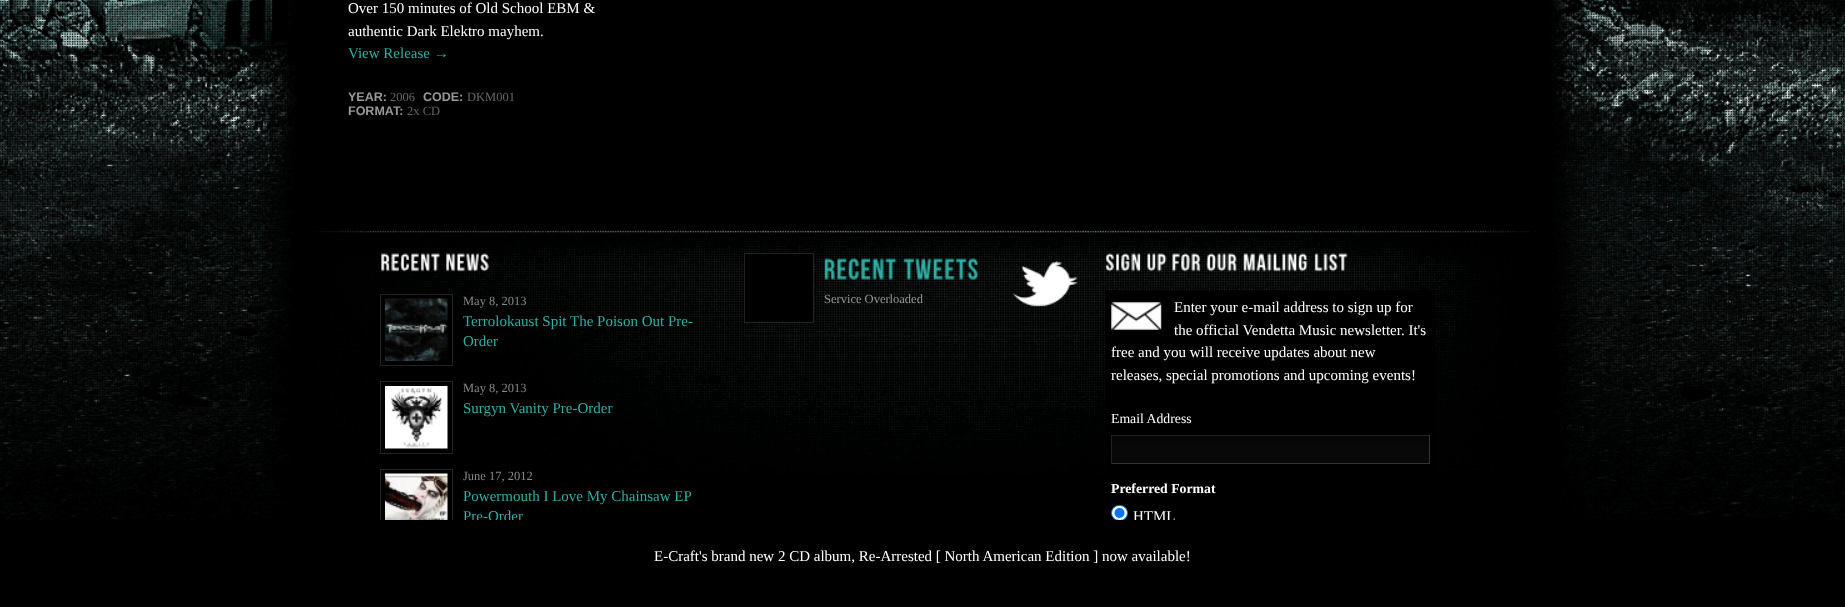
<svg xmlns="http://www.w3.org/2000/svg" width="1845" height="607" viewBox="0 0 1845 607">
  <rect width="100%" height="100%" fill="rgb(255,255,255)"/>
  <image x="0" y="0" width="1845" height="520" href="pic1.png"/>
  <g font-family="Liberation Serif" font-size="15" fill="rgb(255,255,255)">
    <text>
      <tspan x="348" y="13">Over 150 minutes of Old School EBM &amp;</tspan>
      <tspan x="348" y="36">authentic Dark Elektro mayhem.</tspan>
    </text>
  </g>
  <text x="348" y="58" font-family="Liberation Serif" font-size="15" fill="rgb(47,175,164)">View Release →</text>
  <text x="348" y="101" font-family="Liberation Sans" font-size="12.5" font-weight="bold" fill="rgb(153,153,153)">YEAR:</text>
  <text x="390" y="101" font-family="Liberation Serif" font-size="12.5" fill="rgb(102,102,102)">2006</text>
  <text x="423" y="101" font-family="Liberation Sans" font-size="12.5" font-weight="bold" fill="rgb(153,153,153)">CODE:</text>
  <text x="467" y="101" font-family="Liberation Serif" font-size="12.5" fill="rgb(102,102,102)">DKM001</text>
  <text x="348" y="115" font-family="Liberation Sans" font-size="12.5" font-weight="bold" fill="rgb(153,153,153)">FORMAT:</text>
  <text x="407" y="115" font-family="Liberation Serif" font-size="12.5" fill="rgb(102,102,102)">2x CD</text>
  <image x="315" y="230" width="1224" height="245" href="pic2.png"/>
  <image x="381" y="253" width="60" height="19" href="pic3.png"/>
  <image x="446" y="253" width="43" height="19" href="pic4.png"/>
  <rect x="381" y="296" width="71" height="69" fill="rgb(0,0,0)"/>
  <rect x="380.5" y="294.5" width="72" height="71" fill="none" stroke="rgb(34,34,34)"/>
  <image x="385" y="298" width="63" height="63" href="pic5.png"/>
  <text x="463" y="305" font-family="Liberation Serif" font-size="12.5" fill="rgb(136,136,136)">May 8, 2013</text>
  <g font-family="Liberation Serif" font-size="15" fill="rgb(47,175,164)">
    <text>
      <tspan x="463" y="326">Terrolokaust Spit The Poison Out Pre-</tspan>
      <tspan x="463" y="346">Order</tspan>
    </text>
  </g>
  <rect x="381" y="384" width="31" height="68" fill="rgb(0,0,0)"/>
  <rect x="380.5" y="381.5" width="72" height="72" fill="none" stroke="rgb(34,34,34)"/>
  <image x="385" y="386" width="63" height="63" href="pic6.png"/>
  <text x="463" y="392" font-family="Liberation Serif" font-size="12.5" fill="rgb(136,136,136)">May 8, 2013</text>
  <text x="463" y="413" font-family="Liberation Serif" font-size="15" fill="rgb(47,175,164)">Surgyn Vanity Pre-Order</text>
  <rect x="380.5" y="469.5" width="72" height="71" fill="none" stroke="rgb(34,34,34)"/>
  <image x="385" y="473" width="63" height="47" href="pic7.png"/>
  <text x="463" y="480" font-family="Liberation Serif" font-size="12.5" fill="rgb(136,136,136)">June 17, 2012</text>
  <g font-family="Liberation Serif" font-size="15" fill="rgb(47,175,164)">
    <text>
      <tspan x="463" y="501">Powermouth I Love My Chainsaw EP</tspan>
      <tspan x="463" y="521">Pre-Order</tspan>
    </text>
  </g>
  <image x="1012" y="260" width="66" height="47" href="pic8.png"/>
  <path d="M1081 336H742L744 335H1080Z" fill="rgb(9,9,9)"/>
  <rect x="744.5" y="253.5" width="69" height="69" fill="rgb(0,0,0)" stroke="rgb(34,34,34)"/>
  <image x="823" y="258" width="74" height="22" href="pic9.png"/>
  <image x="903" y="258" width="75" height="22" href="pic10.png"/>
  <text x="824" y="303" font-family="Liberation Serif" font-size="12.5" fill="rgb(153,153,153)">Service Overloaded</text>
  <image x="1105" y="253" width="36" height="19" href="pic11.png"/>
  <image x="1147" y="253" width="20" height="19" href="pic12.png"/>
  <image x="1172" y="253" width="29" height="19" href="pic13.png"/>
  <image x="1206" y="253" width="31" height="19" href="pic14.png"/>
  <image x="1243" y="253" width="65" height="19" href="pic15.png"/>
  <image x="1314" y="253" width="34" height="19" href="pic16.png"/>
  <rect x="1105" y="291" width="330" height="184" fill="rgb(0,0,0)"/>
  <g font-family="Liberation Serif" font-size="15" fill="rgb(255,255,255)">
    <text>
      <tspan x="1174" y="312">Enter your e-mail address to sign up for</tspan>
      <tspan x="1174" y="335">the official Vendetta Music newsletter. It's</tspan>
    </text>
    <text>
      <tspan x="1111" y="357">free and you will receive updates about new</tspan>
      <tspan x="1111" y="380">releases, special promotions and upcoming events!</tspan>
    </text>
  </g>
  <image x="1111" y="302" width="51" height="28" href="pic17.png"/>
  <text x="1111" y="423" font-family="Liberation Serif" font-size="13.75" fill="rgb(255,255,255)">Email Address</text>
  <image x="1112" y="436" width="317" height="27" href="pic18.png"/>
  <rect x="1111" y="435" width="319" height="1" fill="rgb(34,34,34)"/>
  <rect x="1429" y="435" width="1" height="29" fill="rgb(51,51,51)"/>
  <rect x="1111" y="463" width="319" height="1" fill="rgb(51,51,51)"/>
  <rect x="1111" y="435" width="1" height="29" fill="rgb(34,34,34)"/>
  <text x="1111" y="493" font-family="Liberation Serif" font-size="13.75" font-weight="bold" fill="rgb(255,255,255)">Preferred Format</text>
  <rect x="1111.5" y="505.5" width="16" height="15" rx="7.5" fill="rgb(255,255,255)" stroke="rgb(0,117,255)"/>
  <circle cx="1119.5" cy="513" r="5" fill="rgb(0,117,255)"/>
  <text x="1133" y="521" font-family="Liberation Serif" font-size="15" fill="rgb(255,255,255)">HTML</text>
  <rect x="0" y="520" width="1845" height="87" fill="rgb(0,0,0)"/>
  <text x="654" y="561" font-family="Liberation Serif" font-size="15" fill="rgb(255,255,255)">E-Craft's brand new 2 CD album, Re-Arrested [ North American Edition ] now available!</text>
</svg>
